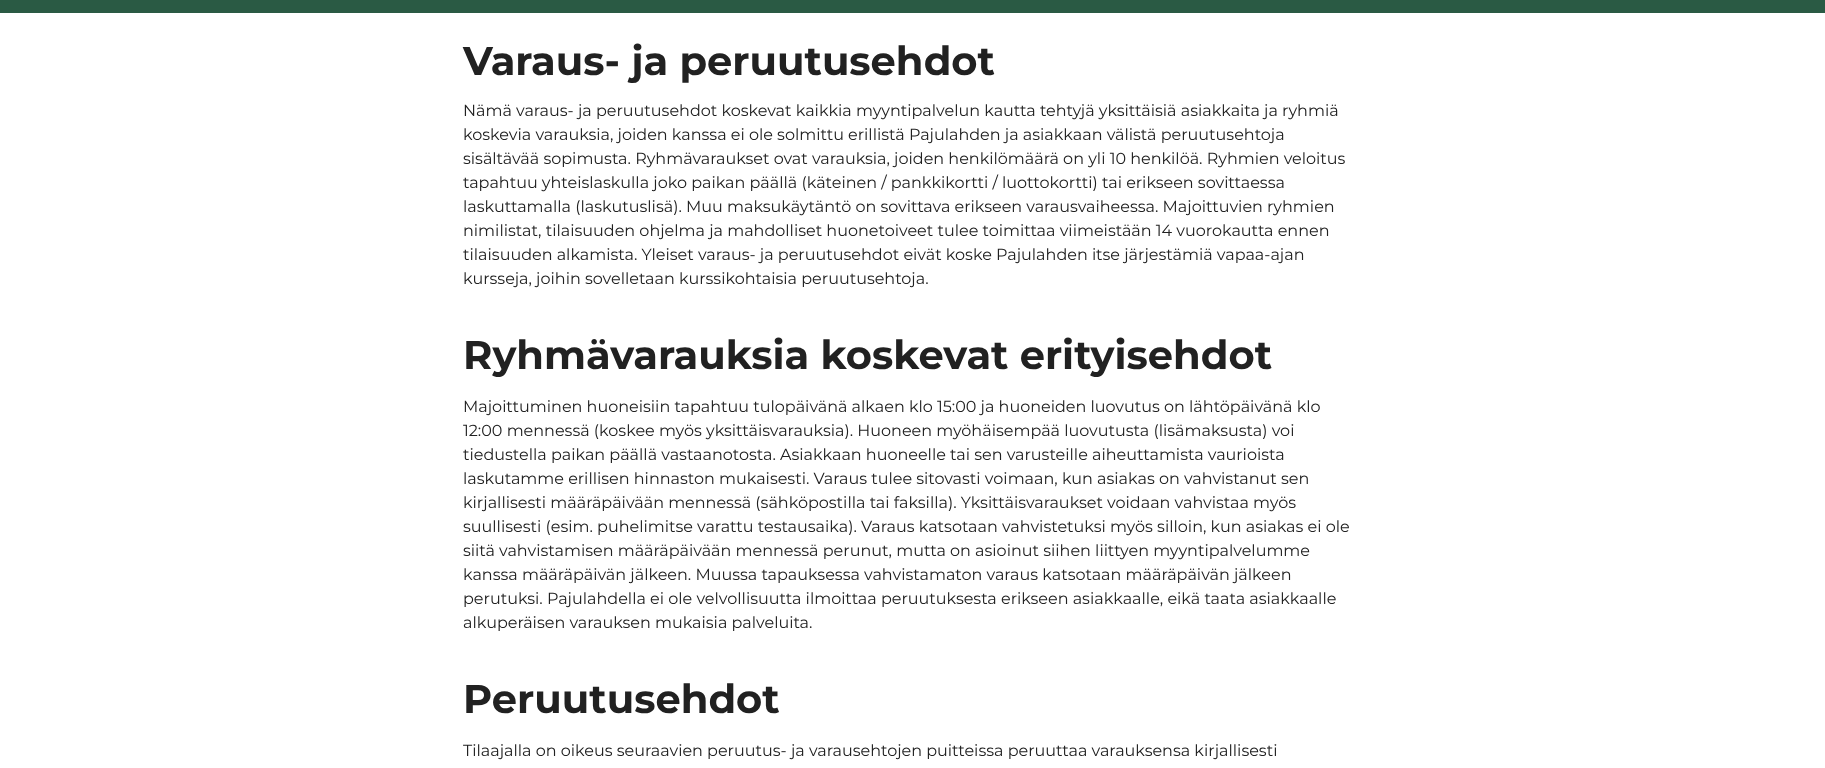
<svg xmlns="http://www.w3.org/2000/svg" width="1825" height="768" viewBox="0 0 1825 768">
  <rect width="100%" height="100%" fill="rgb(255,255,255)"/>
  <rect x="0" y="0" width="1825" height="13" fill="rgb(42,90,68)"/>
  <text x="463" y="75" font-family="Montserrat" font-size="40" font-weight="bold" fill="rgb(33,33,33)">Varaus- ja peruutusehdot</text>
  <g font-family="Montserrat" font-size="16" fill="rgb(33,33,33)">
    <text>
      <tspan x="463" y="116">Nämä varaus- ja peruutusehdot koskevat kaikkia myyntipalvelun kautta tehtyjä yksittäisiä asiakkaita ja ryhmiä</tspan>
      <tspan x="463" y="140">koskevia varauksia, joiden kanssa ei ole solmittu erillistä Pajulahden ja asiakkaan välistä peruutusehtoja</tspan>
      <tspan x="463" y="164">sisältävää sopimusta. Ryhmävaraukset ovat varauksia, joiden henkilömäärä on yli 10 henkilöä. Ryhmien veloitus</tspan>
      <tspan x="463" y="188">tapahtuu yhteislaskulla joko paikan päällä (käteinen / pankkikortti / luottokortti) tai erikseen sovittaessa</tspan>
      <tspan x="463" y="212">laskuttamalla (laskutuslisä). Muu maksukäytäntö on sovittava erikseen varausvaiheessa. Majoittuvien ryhmien</tspan>
      <tspan x="463" y="236">nimilistat, tilaisuuden ohjelma ja mahdolliset huonetoiveet tulee toimittaa viimeistään 14 vuorokautta ennen</tspan>
      <tspan x="463" y="260">tilaisuuden alkamista. Yleiset varaus- ja peruutusehdot eivät koske Pajulahden itse järjestämiä vapaa-ajan</tspan>
      <tspan x="463" y="284">kursseja, joihin sovelletaan kurssikohtaisia peruutusehtoja.</tspan>
    </text>
  </g>
  <text x="463" y="369" font-family="Montserrat" font-size="40" font-weight="bold" fill="rgb(33,33,33)">Ryhmävarauksia koskevat erityisehdot</text>
  <g font-family="Montserrat" font-size="16" fill="rgb(33,33,33)">
    <text>
      <tspan x="463" y="412">Majoittuminen huoneisiin tapahtuu tulopäivänä alkaen klo 15:00 ja huoneiden luovutus on lähtöpäivänä klo</tspan>
      <tspan x="463" y="436">12:00 mennessä (koskee myös yksittäisvarauksia). Huoneen myöhäisempää luovutusta (lisämaksusta) voi</tspan>
      <tspan x="463" y="460">tiedustella paikan päällä vastaanotosta. Asiakkaan huoneelle tai sen varusteille aiheuttamista vaurioista</tspan>
      <tspan x="463" y="484">laskutamme erillisen hinnaston mukaisesti. Varaus tulee sitovasti voimaan, kun asiakas on vahvistanut sen</tspan>
      <tspan x="463" y="508">kirjallisesti määräpäivään mennessä (sähköpostilla tai faksilla). Yksittäisvaraukset voidaan vahvistaa myös</tspan>
      <tspan x="463" y="532">suullisesti (esim. puhelimitse varattu testausaika). Varaus katsotaan vahvistetuksi myös silloin, kun asiakas ei ole</tspan>
      <tspan x="463" y="556">siitä vahvistamisen määräpäivään mennessä perunut, mutta on asioinut siihen liittyen myyntipalvelumme</tspan>
      <tspan x="463" y="580">kanssa määräpäivän jälkeen. Muussa tapauksessa vahvistamaton varaus katsotaan määräpäivän jälkeen</tspan>
      <tspan x="463" y="604">perutuksi. Pajulahdella ei ole velvollisuutta ilmoittaa peruutuksesta erikseen asiakkaalle, eikä taata asiakkaalle</tspan>
      <tspan x="463" y="628">alkuperäisen varauksen mukaisia palveluita.</tspan>
    </text>
  </g>
  <text x="463" y="713" font-family="Montserrat" font-size="40" font-weight="bold" fill="rgb(33,33,33)">Peruutusehdot</text>
  <text x="463" y="756" font-family="Montserrat" font-size="16" fill="rgb(33,33,33)">Tilaajalla on oikeus seuraavien peruutus- ja varausehtojen puitteissa peruuttaa varauksensa kirjallisesti</text>
</svg>
